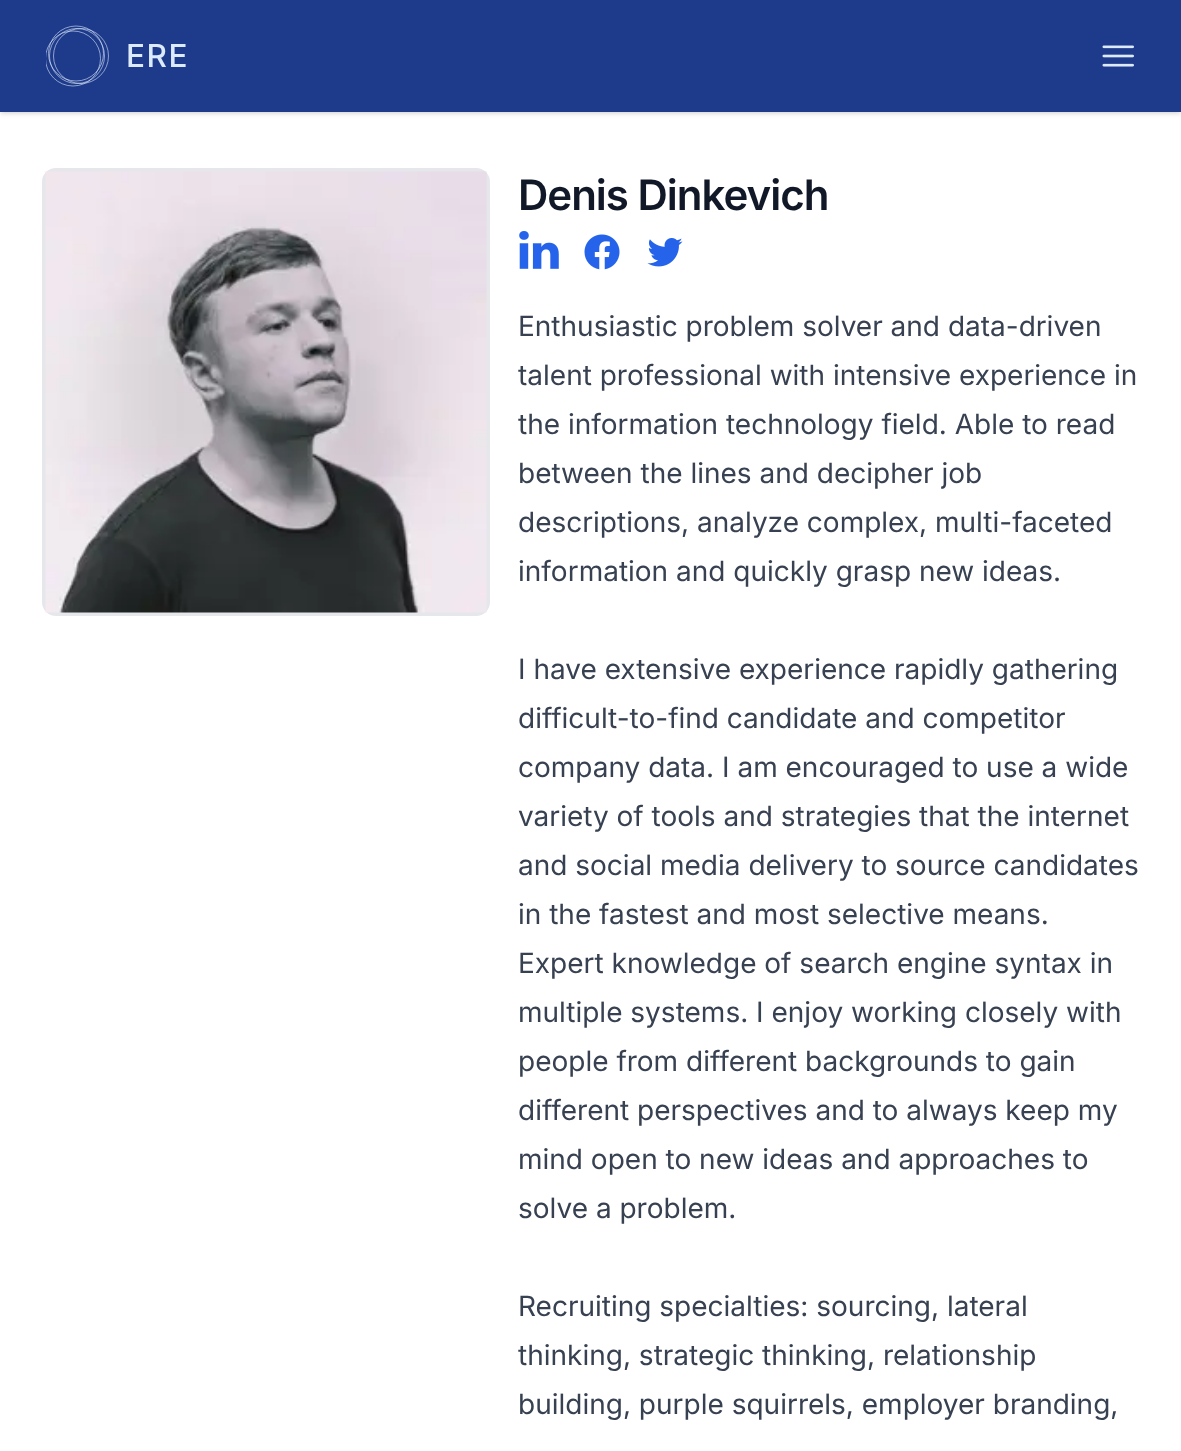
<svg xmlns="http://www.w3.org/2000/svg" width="1181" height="1451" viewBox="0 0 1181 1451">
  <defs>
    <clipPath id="clip1"><rect x="46" y="25" width="63" height="63"/></clipPath>
  </defs>
  <rect width="100%" height="100%" fill="rgb(255,255,255)"/>
  <rect x="2" y="4" width="1178" height="108" fill="rgba(0,0,0,0.1)" filter="blur(2px)"/>
  <rect x="0" y="2" width="1181" height="112" fill="rgba(0,0,0,0.1)" filter="blur(2.5px)"/>
  <rect x="0" y="0" width="1181" height="112" fill="rgb(30,58,138)"/>
  <g clip-path="url(#clip1)">
    <circle cx="73" cy="58.5" r="27.5" fill="none" stroke="rgb(219,234,254)" stroke-width="0.6"/>
  </g>
  <circle cx="76" cy="53.5" r="27.5" fill="none" stroke="rgb(219,234,254)" stroke-width="0.6"/>
  <circle cx="81" cy="56" r="27.5" fill="none" stroke="rgb(219,234,254)" stroke-width="0.6"/>
  <circle cx="77" cy="56" r="27.5" fill="none" stroke="rgb(219,234,254)" stroke-width="0.6"/>
  <text x="126" y="67" font-family="Inter" font-size="31.5" font-weight="500" letter-spacing="1.5" fill="rgb(219,234,254)">ERE</text>
  <image x="1102" y="45" width="32" height="22" href="pic1.png"/>
  <rect x="44" y="170" width="444" height="444" rx="12" fill="none" stroke="rgb(229,231,235)" stroke-width="4"/>
  <image x="45" y="171" width="442" height="442" href="pic2.png"/>
  <text x="518" y="210" font-family="Inter" font-size="42" font-weight="600" letter-spacing="-1" fill="rgb(17,24,39)">Denis Dinkevich</text>
  <image x="519" y="231" width="40" height="38" href="pic3.png"/>
  <image x="584" y="234" width="36" height="36" href="pic4.png"/>
  <image x="647" y="238" width="36" height="29" href="pic5.png"/>
  <g font-family="Inter" font-size="28" fill="rgb(55,65,81)">
    <text>
      <tspan x="518" y="336">Enthusiastic problem solver and data-driven</tspan>
      <tspan x="518" y="385">talent professional with intensive experience in</tspan>
      <tspan x="518" y="434">the information technology field. Able to read</tspan>
      <tspan x="518" y="483">between the lines and decipher job</tspan>
      <tspan x="518" y="532">descriptions, analyze complex, multi-faceted</tspan>
      <tspan x="518" y="581">information and quickly grasp new ideas.</tspan>
    </text>
    <text>
      <tspan x="518" y="679">I have extensive experience rapidly gathering</tspan>
      <tspan x="518" y="728">difficult-to-find candidate and competitor</tspan>
      <tspan x="518" y="777">company data. I am encouraged to use a wide</tspan>
      <tspan x="518" y="826">variety of tools and strategies that the internet</tspan>
      <tspan x="518" y="875">and social media delivery to source candidates</tspan>
      <tspan x="518" y="924">in the fastest and most selective means.</tspan>
      <tspan x="518" y="973">Expert knowledge of search engine syntax in</tspan>
      <tspan x="518" y="1022">multiple systems. I enjoy working closely with</tspan>
      <tspan x="518" y="1071">people from different backgrounds to gain</tspan>
      <tspan x="518" y="1120">different perspectives and to always keep my</tspan>
      <tspan x="518" y="1169">mind open to new ideas and approaches to</tspan>
      <tspan x="518" y="1218">solve a problem.</tspan>
    </text>
    <text>
      <tspan x="518" y="1316">Recruiting specialties: sourcing, lateral</tspan>
      <tspan x="518" y="1365">thinking, strategic thinking, relationship</tspan>
      <tspan x="518" y="1414">building, purple squirrels, employer branding,</tspan>
    </text>
  </g>
</svg>
